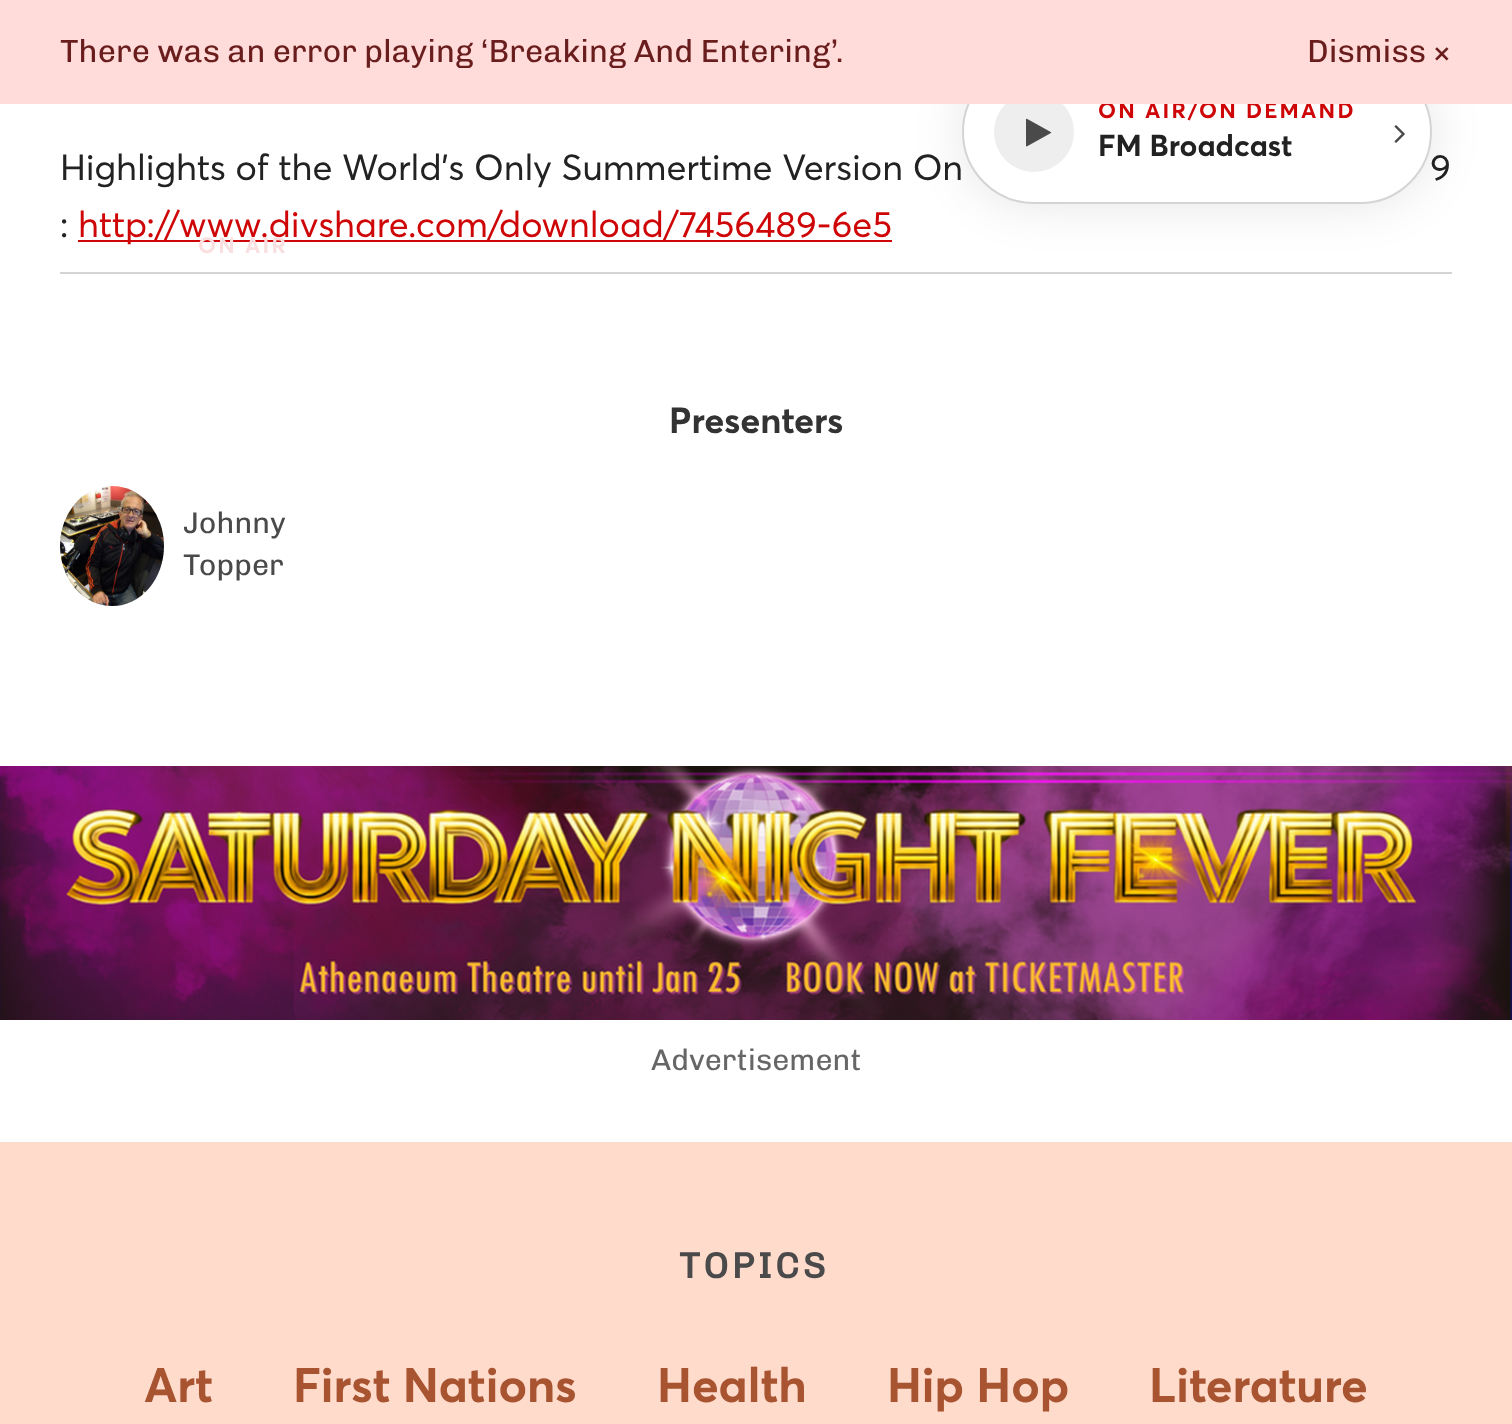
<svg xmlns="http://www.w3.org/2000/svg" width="1512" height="1424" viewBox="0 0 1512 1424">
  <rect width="100%" height="100%" fill="rgb(255,255,255)"/>
  <rect x="78" y="240" width="814" height="2" fill="rgb(207,6,7)"/>
  <rect x="60" y="272" width="1392" height="2" fill="rgb(212,212,212)"/>
  <rect x="962" y="60" width="470" height="144" rx="72" fill="rgba(0,0,0,0.1)" filter="blur(25px)"/>
  <text x="1430" y="180" font-family="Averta" font-size="36" fill="rgb(34,34,34)">9</text>
  <rect x="963" y="61" width="468" height="142" rx="71" fill="rgb(255,255,255)" stroke="rgb(212,212,212)" stroke-width="2"/>
  <circle cx="1034" cy="132" r="39" fill="rgb(238,238,238)" stroke="rgb(238,238,238)" stroke-width="2"/>
  <text x="1098" y="118" font-family="Averta" font-size="22" font-weight="bold" letter-spacing="2.25" fill="rgb(207,6,7)">ON AIR/ON DEMAND</text>
  <rect x="0" y="0" width="1512" height="104" fill="rgb(255,220,217)"/>
  <g font-family="Chivo" font-size="32" fill="rgb(105,29,29)">
    <text x="60" y="62">There was an error playing ‘Breaking And Entering’.</text>
    <text x="1307" y="62">Dismiss</text>
    <text x="1432" y="62">×</text>
  </g>
  <image x="1026" y="118" width="26" height="29" href="pic1.png"/>
  <text x="1098" y="156" font-family="Averta" font-size="30" font-weight="bold" fill="rgb(34,34,34)">FM Broadcast</text>
  <image x="1394" y="125" width="11" height="18" href="pic2.png"/>
  <g font-family="Averta" font-size="36" fill="rgb(34,34,34)">
    <text>
      <tspan x="60" y="180">Highlights of the World's Only Summertime Version On</tspan>
      <tspan x="60" y="237">:</tspan>
    </text>
  </g>
  <text x="78" y="237" font-family="Averta" font-size="36" fill="rgb(207,6,7)">http://www.divshare.com/download/7456489-6e5</text>
  <text x="669" y="433" font-family="Averta" font-size="36" font-weight="bold" fill="rgb(51,51,51)">Presenters</text>
  <image x="60" y="486" width="104" height="120" href="pic3.png"/>
  <g font-family="Chivo" font-size="30" fill="rgb(74,74,74)">
    <text>
      <tspan x="183" y="533">Johnny</tspan>
      <tspan x="183" y="575">Topper</tspan>
    </text>
  </g>
  <image x="0" y="766" width="1512" height="254" href="pic4.png"/>
  <text x="651" y="1070" font-family="Chivo" font-size="30" fill="rgb(102,102,102)">Advertisement</text>
  <rect x="0" y="1142" width="1512" height="282" fill="rgb(255,219,204)"/>
  <text x="679" y="1278" font-family="Chivo" font-size="36" font-weight="bold" letter-spacing="3.5" fill="rgb(74,74,74)">TOPICS</text>
  <g font-family="Averta" font-size="48" font-weight="bold" fill="rgb(168,84,49)">
    <text x="144" y="1402">Art</text>
    <text x="293" y="1402">First Nations</text>
    <text x="657" y="1402">Health</text>
    <text x="887" y="1402">Hip Hop</text>
    <text x="1149" y="1402">Literature</text>
  </g>
  <text x="198" y="253" font-family="Averta" font-size="22" font-weight="bold" letter-spacing="2.25" fill="rgb(249,223,223)">ON AIR</text>
</svg>
